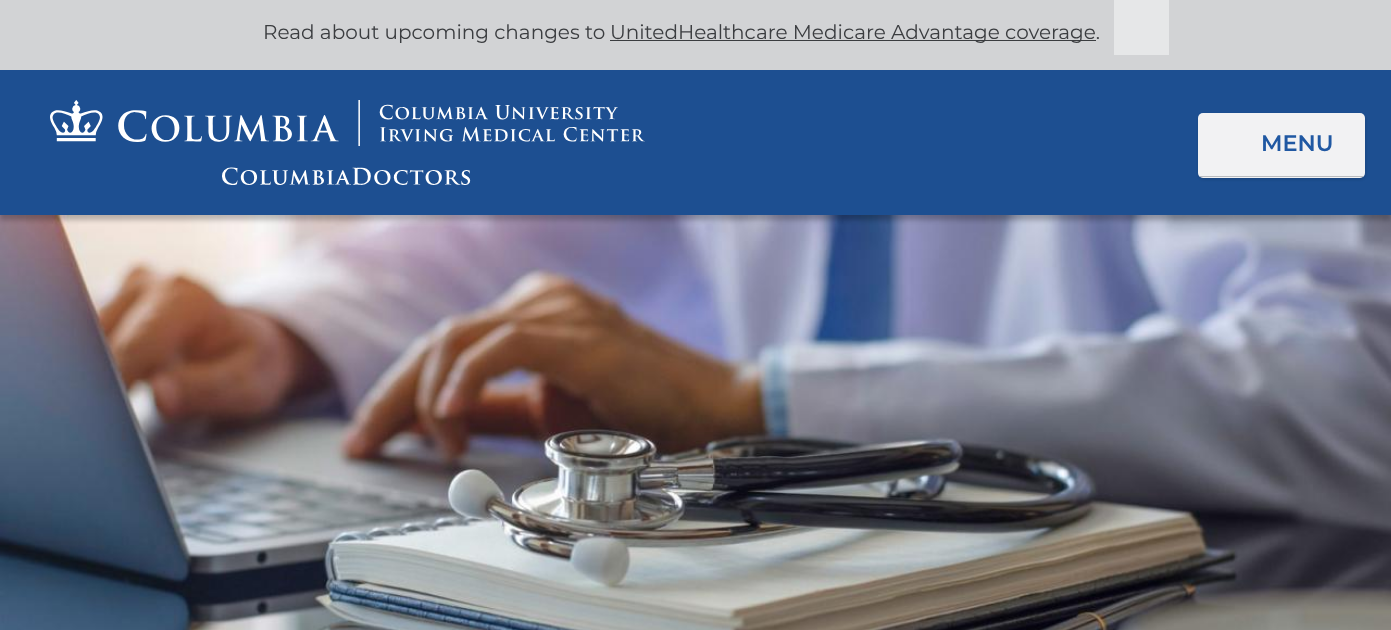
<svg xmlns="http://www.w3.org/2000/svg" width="1391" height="630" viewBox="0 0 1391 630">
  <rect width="100%" height="100%" fill="rgb(255,255,255)"/>
  <image x="0" y="215" width="1391" height="415" href="pic2.png"/>
  <rect x="0" y="5" width="1391" height="215" fill="rgba(0,0,0,0.24)" filter="blur(2.5px)"/>
  <rect x="0" y="0" width="1391" height="70" fill="rgb(210,211,213)"/>
  <text x="263" y="39" font-family="Montserrat" font-size="20" fill="rgb(59,61,64)">Read about upcoming changes to</text>
  <rect x="610" y="40" width="486" height="1" fill="rgb(59,61,64)"/>
  <text x="610" y="39" font-family="Montserrat" font-size="20" fill="rgb(59,61,64)">UnitedHealthcare Medicare Advantage coverage.</text>
  <rect x="1114" y="0" width="55" height="55" fill="rgb(230,231,232)"/>
  <rect x="0" y="70" width="1391" height="145" fill="rgb(29,79,145)"/>
  <image x="50" y="100" width="595" height="85" href="pic1.png"/>
  <rect x="1198" y="114" width="168" height="66" rx="6" fill="rgba(0,0,0,0.1)" filter="blur(1px)"/>
  <rect x="1198" y="113" width="167" height="65" rx="5" fill="rgb(242,242,243)"/>
  <rect x="1200" y="176" width="163" height="1" fill="rgb(186,188,191)"/>
  <text x="1261" y="151" font-family="Montserrat" font-size="22.5" font-weight="600" fill="rgb(32,88,162)">MENU</text>
</svg>
